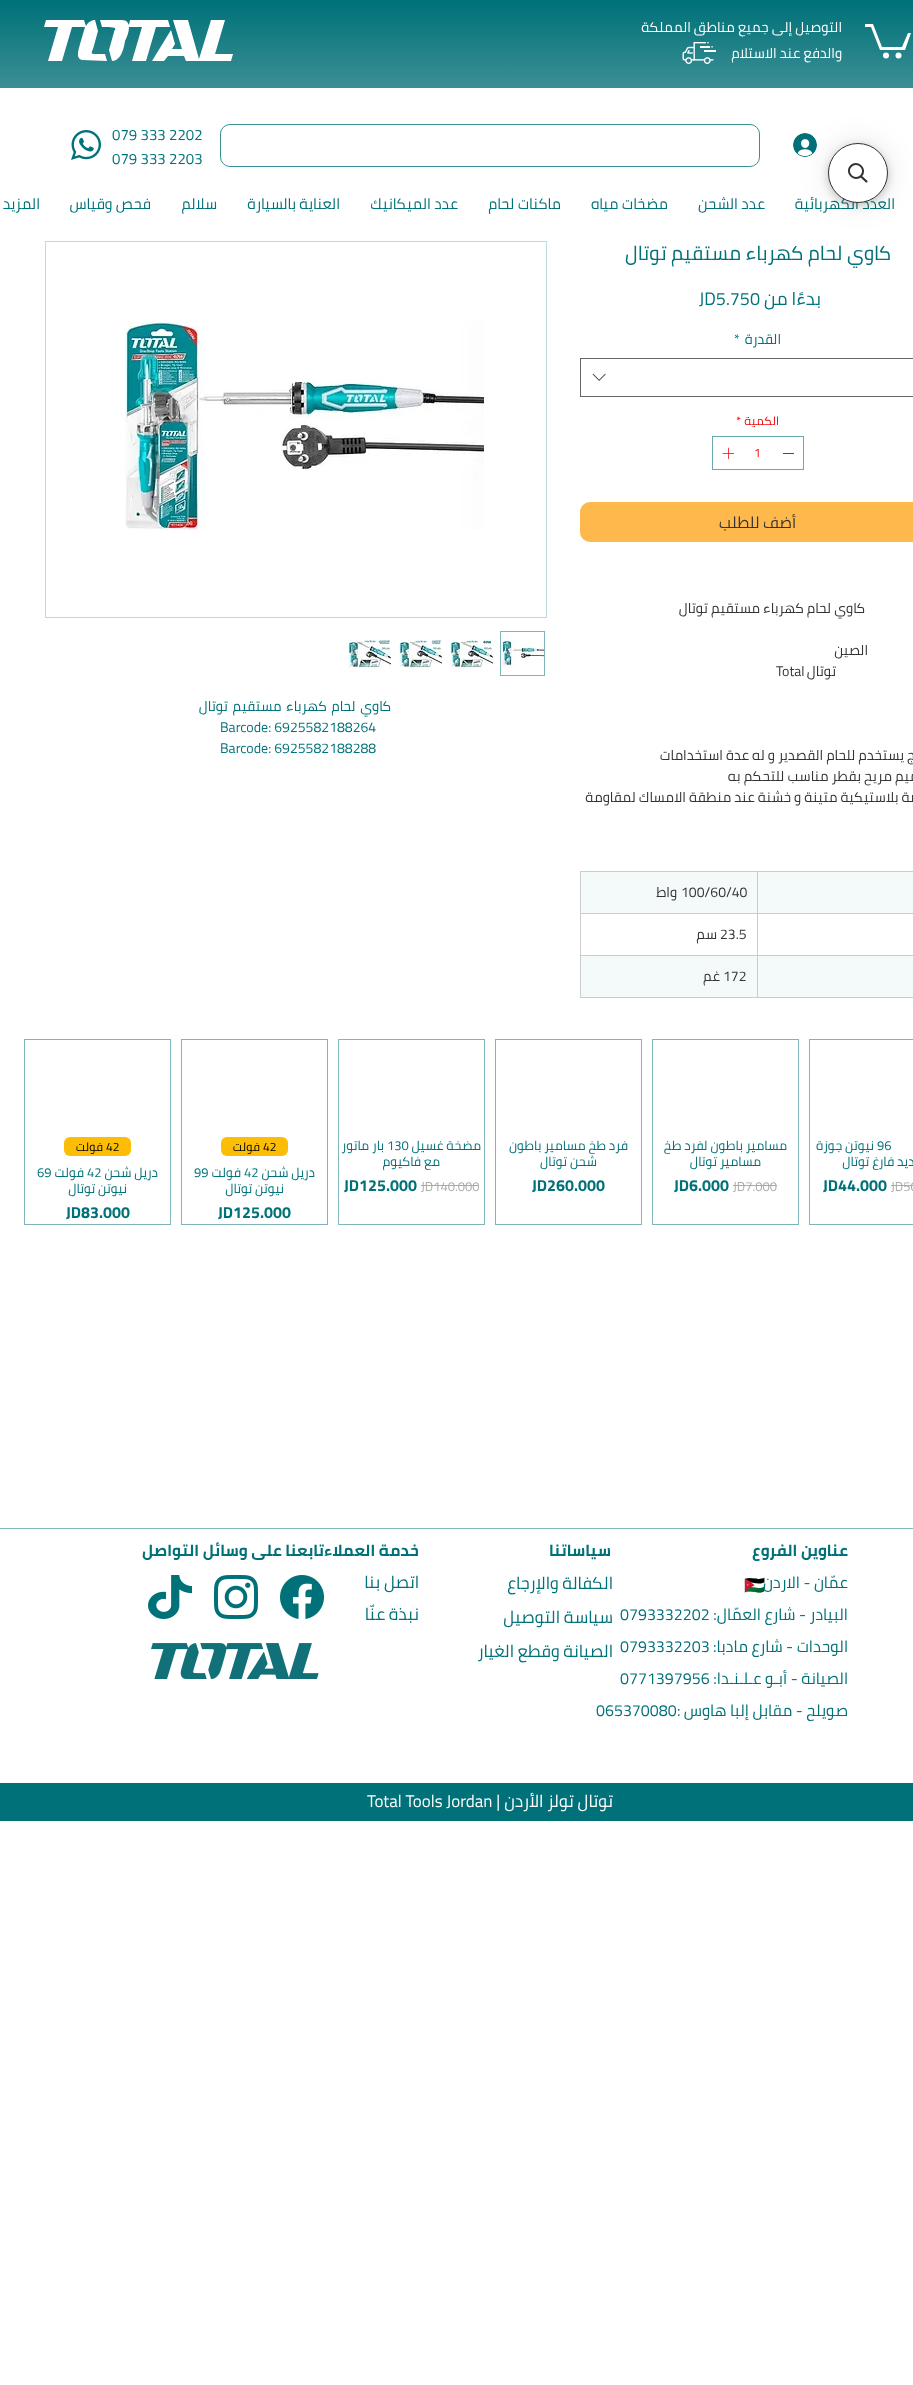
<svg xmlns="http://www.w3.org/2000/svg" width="913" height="2385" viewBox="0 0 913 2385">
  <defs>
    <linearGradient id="g1" gradientUnits="userSpaceOnUse" x1="490" y1="0" x2="490" y2="88"><stop offset="0.02" stop-color="rgb(0,113,121)"/><stop offset="1" stop-color="rgb(60,143,148)"/></linearGradient>
  </defs>
  <rect width="100%" height="100%" fill="rgb(255,255,255)"/>
  <rect x="0" y="0" width="913" height="88" fill="url(#g1)"/>
  <path d="M911 33L905 50H880L871 27H865V24H873L882 47H902L908 33" fill="rgb(255,255,255)"/>
  <circle cx="898.5" cy="55.5" r="3" fill="rgb(255,255,255)"/>
  <circle cx="886" cy="55.5" r="3" fill="rgb(255,255,255)"/>
  <image x="682" y="42" width="34" height="22" href="pic1.png"/>
  <g font-family="Cairo" font-size="14" direction="rtl" fill="rgb(255,255,255)">
    <text>
      <tspan x="842" y="32">التوصيل إلى جميع مناطق المملكة</tspan>
      <tspan x="842" y="58">والدفع عند الاستلام</tspan>
    </text>
  </g>
  <path d="M44 27H58L48 61H62L72 27H85L80 44C79 49 75 58 82 60L107 61L105 54H95C91 54 91 53 93 49L98 31L95 20C95 20 89 20 86 26L84 20H46Z" fill="rgb(255,255,255)"/>
  <path d="M112 61L109 50L114 32C114 31 116 29 115 28C114 27 103 27 102 27L100 20H122C127 20 128 23 129 25L130 20H168L170 27H156L146 61H132L142 27H129C129 32 127 37 125 41C124 48 121 61 112 61Z" fill="rgb(255,255,255)"/>
  <path d="M171 30L175 44L172 49H182L173 20H188L199 59L211 20H225L215 54H233L231 61H186L184 56H168L164 61H152Z" fill="rgb(255,255,255)"/>
  <image x="793" y="133" width="24" height="24" href="pic2.png"/>
  <rect x="220.5" y="124.5" width="539" height="42" rx="9.5" fill="none" stroke="rgb(56,144,150)"/>
  <text x="112" y="140" font-family="Cairo" font-size="15" fill="rgb(0,113,121)">079 333 2202</text>
  <image x="71" y="130" width="30" height="30" href="pic3.png"/>
  <text x="112" y="164" font-family="Cairo" font-size="15" fill="rgb(0,113,121)">079 333 2203</text>
  <g font-family="Cairo" font-size="15" direction="rtl" fill="rgb(0,113,121)">
    <text x="895" y="209">العدد الكهربائية</text>
    <text x="765" y="209">عدد الشحن</text>
    <text x="668" y="209">مضخات مياه</text>
    <text x="561" y="209">ماكنات لحام</text>
    <text x="458" y="209">عدد الميكانيك</text>
    <text x="340" y="209">العناية بالسيارة</text>
    <text x="217" y="209">سلالم</text>
    <text x="151" y="209">فحص وقياس</text>
    <text x="40" y="209">المزيد</text>
  </g>
  <text x="891" y="260" font-family="Cairo" font-size="20" direction="rtl" fill="rgb(0,113,121)">كاوي لحام كهرباء مستقيم توتال</text>
  <text x="821" y="305" font-family="Cairo" font-size="18" direction="rtl" fill="rgb(0,113,121)">بدءًا من</text>
  <text x="699" y="305" font-family="Cairo" font-size="18" fill="rgb(0,113,121)">JD5.750</text>
  <text x="781" y="344" font-family="Cairo" font-size="14" direction="rtl" fill="rgb(0,113,121)">القدرة</text>
  <text x="734" y="344" font-family="Cairo" font-size="14" fill="rgb(0,113,121)">*</text>
  <rect x="580.5" y="358.5" width="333" height="38" fill="none" stroke="rgb(102,102,102)"/>
  <image x="592" y="373" width="14" height="8" href="pic4.png"/>
  <text x="779" y="425" font-family="Cairo" font-size="12" direction="rtl" fill="rgb(234,7,10)">الكمية</text>
  <text x="736" y="425" font-family="Cairo" font-size="12" fill="rgb(234,7,10)">*</text>
  <rect x="712.5" y="436.5" width="91" height="33" fill="none" stroke="rgb(102,170,175)"/>
  <rect x="783" y="453" width="11" height="1" fill="rgb(234,7,10)"/>
  <text x="754" y="457" font-family="Cairo" font-size="12" fill="rgb(234,7,10)">1</text>
  <image x="722" y="447" width="12" height="12" href="pic5.png"/>
  <rect x="580" y="502" width="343" height="40" rx="10" fill="rgb(255,184,76)"/>
  <text x="796" y="528" font-family="Cairo" font-size="16" direction="rtl" fill="rgb(51,51,51)">أضف للطلب</text>
  <g font-family="Cairo" font-size="14" direction="rtl" fill="rgb(51,51,51)">
    <text x="865" y="613">كاوي لحام كهرباء مستقيم توتال</text>
    <text x="868" y="655">الصين</text>
    <text x="836" y="676">توتال</text>
  </g>
  <text x="776" y="676" font-family="Cairo" font-size="14" fill="rgb(51,51,51)">Total</text>
  <g font-family="Cairo" font-size="14" direction="rtl" fill="rgb(51,51,51)">
    <text>
      <tspan x="935" y="760">منتج يستخدم للحام القصدير و له عدة استخدامات</tspan>
      <tspan x="935" y="781">تصميم مريح بقطر مناسب للتحكم به</tspan>
      <tspan x="935" y="802">قبضة بلاستيكية متينة و خشنة عند منطقة الامساك لمقاومة</tspan>
    </text>
  </g>
  <rect x="581" y="872" width="332" height="41" fill="rgb(244,249,249)"/>
  <rect x="580" y="871" width="178" height="1" fill="rgb(204,204,204)"/>
  <rect x="580" y="913" width="178" height="1" fill="rgb(204,204,204)"/>
  <rect x="580" y="955" width="178" height="1" fill="rgb(204,204,204)"/>
  <rect x="581" y="956" width="332" height="41" fill="rgb(244,249,249)"/>
  <rect x="757" y="955" width="1" height="43" fill="rgb(204,204,204)"/>
  <rect x="757" y="955" width="156" height="1" fill="rgb(204,204,204)"/>
  <rect x="757" y="913" width="1" height="43" fill="rgb(204,204,204)"/>
  <rect x="757" y="913" width="156" height="1" fill="rgb(204,204,204)"/>
  <rect x="757" y="871" width="1" height="43" fill="rgb(204,204,204)"/>
  <rect x="757" y="871" width="156" height="1" fill="rgb(204,204,204)"/>
  <rect x="580" y="997" width="333" height="1" fill="rgb(204,204,204)"/>
  <rect x="580" y="955" width="1" height="43" fill="rgb(204,204,204)"/>
  <rect x="580" y="913" width="1" height="43" fill="rgb(204,204,204)"/>
  <rect x="580" y="871" width="1" height="43" fill="rgb(204,204,204)"/>
  <text x="681" y="897" font-family="Cairo" font-size="14" fill="rgb(51,51,51)">100/60/40</text>
  <text x="677" y="897" font-family="Cairo" font-size="14" direction="rtl" fill="rgb(51,51,51)">واط</text>
  <text x="720" y="939" font-family="Cairo" font-size="14" fill="rgb(51,51,51)">23.5</text>
  <text x="717" y="939" font-family="Cairo" font-size="14" direction="rtl" fill="rgb(51,51,51)">سم</text>
  <text x="723" y="981" font-family="Cairo" font-size="14" fill="rgb(51,51,51)">172</text>
  <text x="720" y="981" font-family="Cairo" font-size="14" direction="rtl" fill="rgb(51,51,51)">غم</text>
  <rect x="45.5" y="241.5" width="501" height="376" fill="none" stroke="rgb(185,219,222)"/>
  <image x="125" y="321" width="359" height="209" href="pic6.png"/>
  <rect x="500.5" y="631.5" width="44" height="44" fill="none" stroke="rgb(128,181,185)"/>
  <image x="501" y="639" width="43" height="29" href="pic7.png"/>
  <image x="450" y="639" width="43" height="34" href="pic8.png"/>
  <image x="399" y="639" width="43" height="33" href="pic9.png"/>
  <image x="348" y="639" width="43" height="33" href="pic10.png"/>
  <text x="391" y="711" word-spacing="1.5" font-family="Cairo" font-size="14" direction="rtl" fill="rgb(0,113,121)">كاوي لحام كهرباء مستقيم توتال</text>
  <g font-family="Cairo" font-size="14" fill="rgb(0,113,121)">
    <text>
      <tspan x="220" y="732">Barcode: 6925582188264</tspan>
      <tspan x="220" y="753">Barcode: 6925582188288</tspan>
    </text>
  </g>
  <rect x="809.5" y="1039.5" width="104" height="185" fill="none" stroke="rgb(128,181,185)"/>
  <text x="877" y="1150" font-family="Cairo" font-size="13" fill="rgb(0,113,121)">96</text>
  <g font-family="Cairo" font-size="13" direction="rtl" fill="rgb(0,113,121)">
    <text x="874" y="1150">نيوتن جوزة</text>
    <text x="922" y="1166">حديد فارغ توتال</text>
  </g>
  <text x="891" y="1191" font-family="Cairo" font-size="13" fill="rgb(170,170,170)">JD50</text>
  <rect x="891" y="1185" width="22" height="1" fill="rgb(170,170,170)"/>
  <text x="823" y="1191" font-family="Cairo" font-size="16" font-weight="bold" fill="rgb(0,113,121)">JD44.000</text>
  <rect x="652.5" y="1039.5" width="146" height="185" fill="none" stroke="rgb(128,181,185)"/>
  <g font-family="Cairo" font-size="13" direction="rtl" fill="rgb(0,113,121)">
    <text x="787" y="1150">مسامير باطون لفرد طخ</text>
    <text x="761" y="1166">مسامير توتال</text>
  </g>
  <text x="733" y="1191" font-family="Cairo" font-size="13" fill="rgb(170,170,170)">JD7.000</text>
  <rect x="733" y="1185" width="44" height="1" fill="rgb(170,170,170)"/>
  <text x="674" y="1191" font-family="Cairo" font-size="16" font-weight="bold" fill="rgb(0,113,121)">JD6.000</text>
  <rect x="495.5" y="1039.5" width="146" height="185" fill="none" stroke="rgb(128,181,185)"/>
  <g font-family="Cairo" font-size="13" direction="rtl" fill="rgb(0,113,121)">
    <text x="628" y="1150">فرد طخ مسامير باطون</text>
    <text x="597" y="1166">شحن توتال</text>
  </g>
  <text x="532" y="1191" font-family="Cairo" font-size="16" font-weight="bold" fill="rgb(0,113,121)">JD260.000</text>
  <rect x="338.5" y="1039.5" width="146" height="185" fill="none" stroke="rgb(128,181,185)"/>
  <text x="481" y="1150" font-family="Cairo" font-size="13" direction="rtl" fill="rgb(0,113,121)">مضخة غسيل</text>
  <text x="387" y="1150" font-family="Cairo" font-size="13" fill="rgb(0,113,121)">130</text>
  <g font-family="Cairo" font-size="13" direction="rtl" fill="rgb(0,113,121)">
    <text x="384" y="1150">بار ماتور</text>
    <text x="440" y="1166">مع فاكيوم</text>
  </g>
  <text x="421" y="1191" font-family="Cairo" font-size="13" fill="rgb(170,170,170)">JD140.000</text>
  <rect x="421" y="1185" width="58" height="1" fill="rgb(170,170,170)"/>
  <text x="344" y="1191" font-family="Cairo" font-size="16" font-weight="bold" fill="rgb(0,113,121)">JD125.000</text>
  <rect x="181.5" y="1039.5" width="146" height="185" fill="none" stroke="rgb(128,181,185)"/>
  <rect x="221" y="1137" width="67" height="19" rx="6" fill="rgb(251,189,5)"/>
  <text x="263" y="1151" font-family="'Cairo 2'" font-size="12" fill="rgb(0,0,0)">42</text>
  <text x="260" y="1151" font-family="'Cairo 2'" font-size="12" direction="rtl" fill="rgb(0,0,0)">فولت</text>
  <text x="315" y="1177" font-family="Cairo" font-size="13" direction="rtl" fill="rgb(0,113,121)">دريل شحن</text>
  <text x="244" y="1177" font-family="Cairo" font-size="13" fill="rgb(0,113,121)">42</text>
  <text x="241" y="1177" font-family="Cairo" font-size="13" direction="rtl" fill="rgb(0,113,121)">فولت</text>
  <text x="194" y="1177" font-family="Cairo" font-size="13" fill="rgb(0,113,121)">99</text>
  <text x="284" y="1193" font-family="Cairo" font-size="13" direction="rtl" fill="rgb(0,113,121)">نيوتن توتال</text>
  <text x="218" y="1218" font-family="Cairo" font-size="16" font-weight="bold" fill="rgb(0,113,121)">JD125.000</text>
  <rect x="24.5" y="1039.5" width="146" height="185" fill="none" stroke="rgb(128,181,185)"/>
  <rect x="64" y="1137" width="67" height="19" rx="6" fill="rgb(251,189,5)"/>
  <text x="106" y="1151" font-family="'Cairo 2'" font-size="12" fill="rgb(0,0,0)">42</text>
  <text x="103" y="1151" font-family="'Cairo 2'" font-size="12" direction="rtl" fill="rgb(0,0,0)">فولت</text>
  <text x="158" y="1177" font-family="Cairo" font-size="13" direction="rtl" fill="rgb(0,113,121)">دريل شحن</text>
  <text x="87" y="1177" font-family="Cairo" font-size="13" fill="rgb(0,113,121)">42</text>
  <text x="84" y="1177" font-family="Cairo" font-size="13" direction="rtl" fill="rgb(0,113,121)">فولت</text>
  <text x="37" y="1177" font-family="Cairo" font-size="13" fill="rgb(0,113,121)">69</text>
  <text x="127" y="1193" font-family="Cairo" font-size="13" direction="rtl" fill="rgb(0,113,121)">نيوتن توتال</text>
  <text x="66" y="1218" font-family="Cairo" font-size="16" font-weight="bold" fill="rgb(0,113,121)">JD83.000</text>
  <rect x="0" y="1528" width="913" height="1" fill="rgb(130,185,189)"/>
  <text x="848" y="1556" font-family="Cairo" font-size="16" font-weight="bold" direction="rtl" fill="rgb(0,113,121)">عناوين الفروع</text>
  <text x="744" y="1591" font-family="Noto Color Emoji" font-size="17" fill="rgb(0,113,121)">🇯🇴</text>
  <g font-family="Cairo" font-size="16" direction="rtl" fill="rgb(0,113,121)">
    <text x="848" y="1588">عمّان - الاردن</text>
    <text x="848" y="1620">البيادر - شارع العمّال:</text>
  </g>
  <text x="620" y="1620" font-family="Cairo" font-size="16" fill="rgb(0,113,121)">0793332202</text>
  <text x="848" y="1652" font-family="Cairo" font-size="16" direction="rtl" fill="rgb(0,113,121)">الوحدات - شارع مادبا:</text>
  <text x="620" y="1652" font-family="Cairo" font-size="16" fill="rgb(0,113,121)">0793332203</text>
  <text x="848" y="1684" font-family="Cairo" font-size="16" direction="rtl" fill="rgb(0,113,121)">الصيانة - أبـو عـلـنـدا:</text>
  <text x="620" y="1684" font-family="Cairo" font-size="16" fill="rgb(0,113,121)">0771397956</text>
  <text x="848" y="1716" font-family="Cairo" font-size="16" direction="rtl" fill="rgb(0,113,121)">صويلح - مقابل إلبا هاوس</text>
  <g font-family="Cairo" font-size="16" fill="rgb(0,113,121)">
    <text x="677" y="1716">:</text>
    <text x="596" y="1716">065370080</text>
  </g>
  <text x="611" y="1556" font-family="Cairo" font-size="16" font-weight="bold" direction="rtl" fill="rgb(0,113,121)">سياساتنا</text>
  <g font-family="Cairo" font-size="17" direction="rtl" fill="rgb(0,113,121)">
    <text x="613" y="1589">الكفالة والإرجاع</text>
    <text x="613" y="1623">سياسة التوصيل</text>
    <text x="613" y="1657">الصيانة وقطع الغيار</text>
  </g>
  <text x="419" y="1556" font-family="Cairo" font-size="16" font-weight="bold" direction="rtl" fill="rgb(0,113,121)">خدمة العملاء</text>
  <g font-family="Cairo" font-size="17" direction="rtl" fill="rgb(0,113,121)">
    <text>
      <tspan x="419" y="1588">اتصل بنا</tspan>
      <tspan x="419" y="1620">نبذة عنّا</tspan>
    </text>
  </g>
  <text x="324" y="1556" font-family="Cairo" font-size="16" font-weight="bold" direction="rtl" fill="rgb(0,113,121)">تابعنا على وسائل التواصل</text>
  <image x="280" y="1575" width="44" height="44" href="pic11.png"/>
  <image x="214" y="1575" width="44" height="44" href="pic12.png"/>
  <image x="148" y="1575" width="44" height="44" href="pic13.png"/>
  <image x="151" y="1643" width="168" height="37" href="pic14.png"/>
  <rect x="0" y="1783" width="913" height="38" fill="rgb(0,113,121)"/>
  <text x="613" y="1807" font-family="Cairo" font-size="17" direction="rtl" fill="rgb(255,255,255)">توتال تولز الأردن</text>
  <text x="367" y="1807" font-family="Cairo" font-size="17" fill="rgb(255,255,255)">Total Tools Jordan |</text>
  <rect x="828" y="147" width="60" height="60" rx="30" fill="rgba(0,0,0,0.05)" filter="blur(4px)"/>
  <rect x="828" y="145" width="60" height="60" rx="30" fill="rgba(0,0,0,0.15)" filter="blur(4px)"/>
  <rect x="828" y="143" width="60" height="60" rx="30" fill="rgba(0,0,0,0.1)" filter="blur(15px)"/>
  <circle cx="858" cy="173" r="29.5" fill="rgb(255,255,255)" stroke="rgb(51,51,51)"/>
  <path d="M851 166C857.5 159.5 867.5 169.5 861 176C854.5 182.5 844.5 172.5 851 166Z" fill="none" stroke="rgb(51,51,51)" stroke-width="2"/>
  <path d="M860 177L861.5 175.5L867.5 181C868 182 866.5 183 866 182.5Z" fill="rgb(51,51,51)"/>
</svg>
